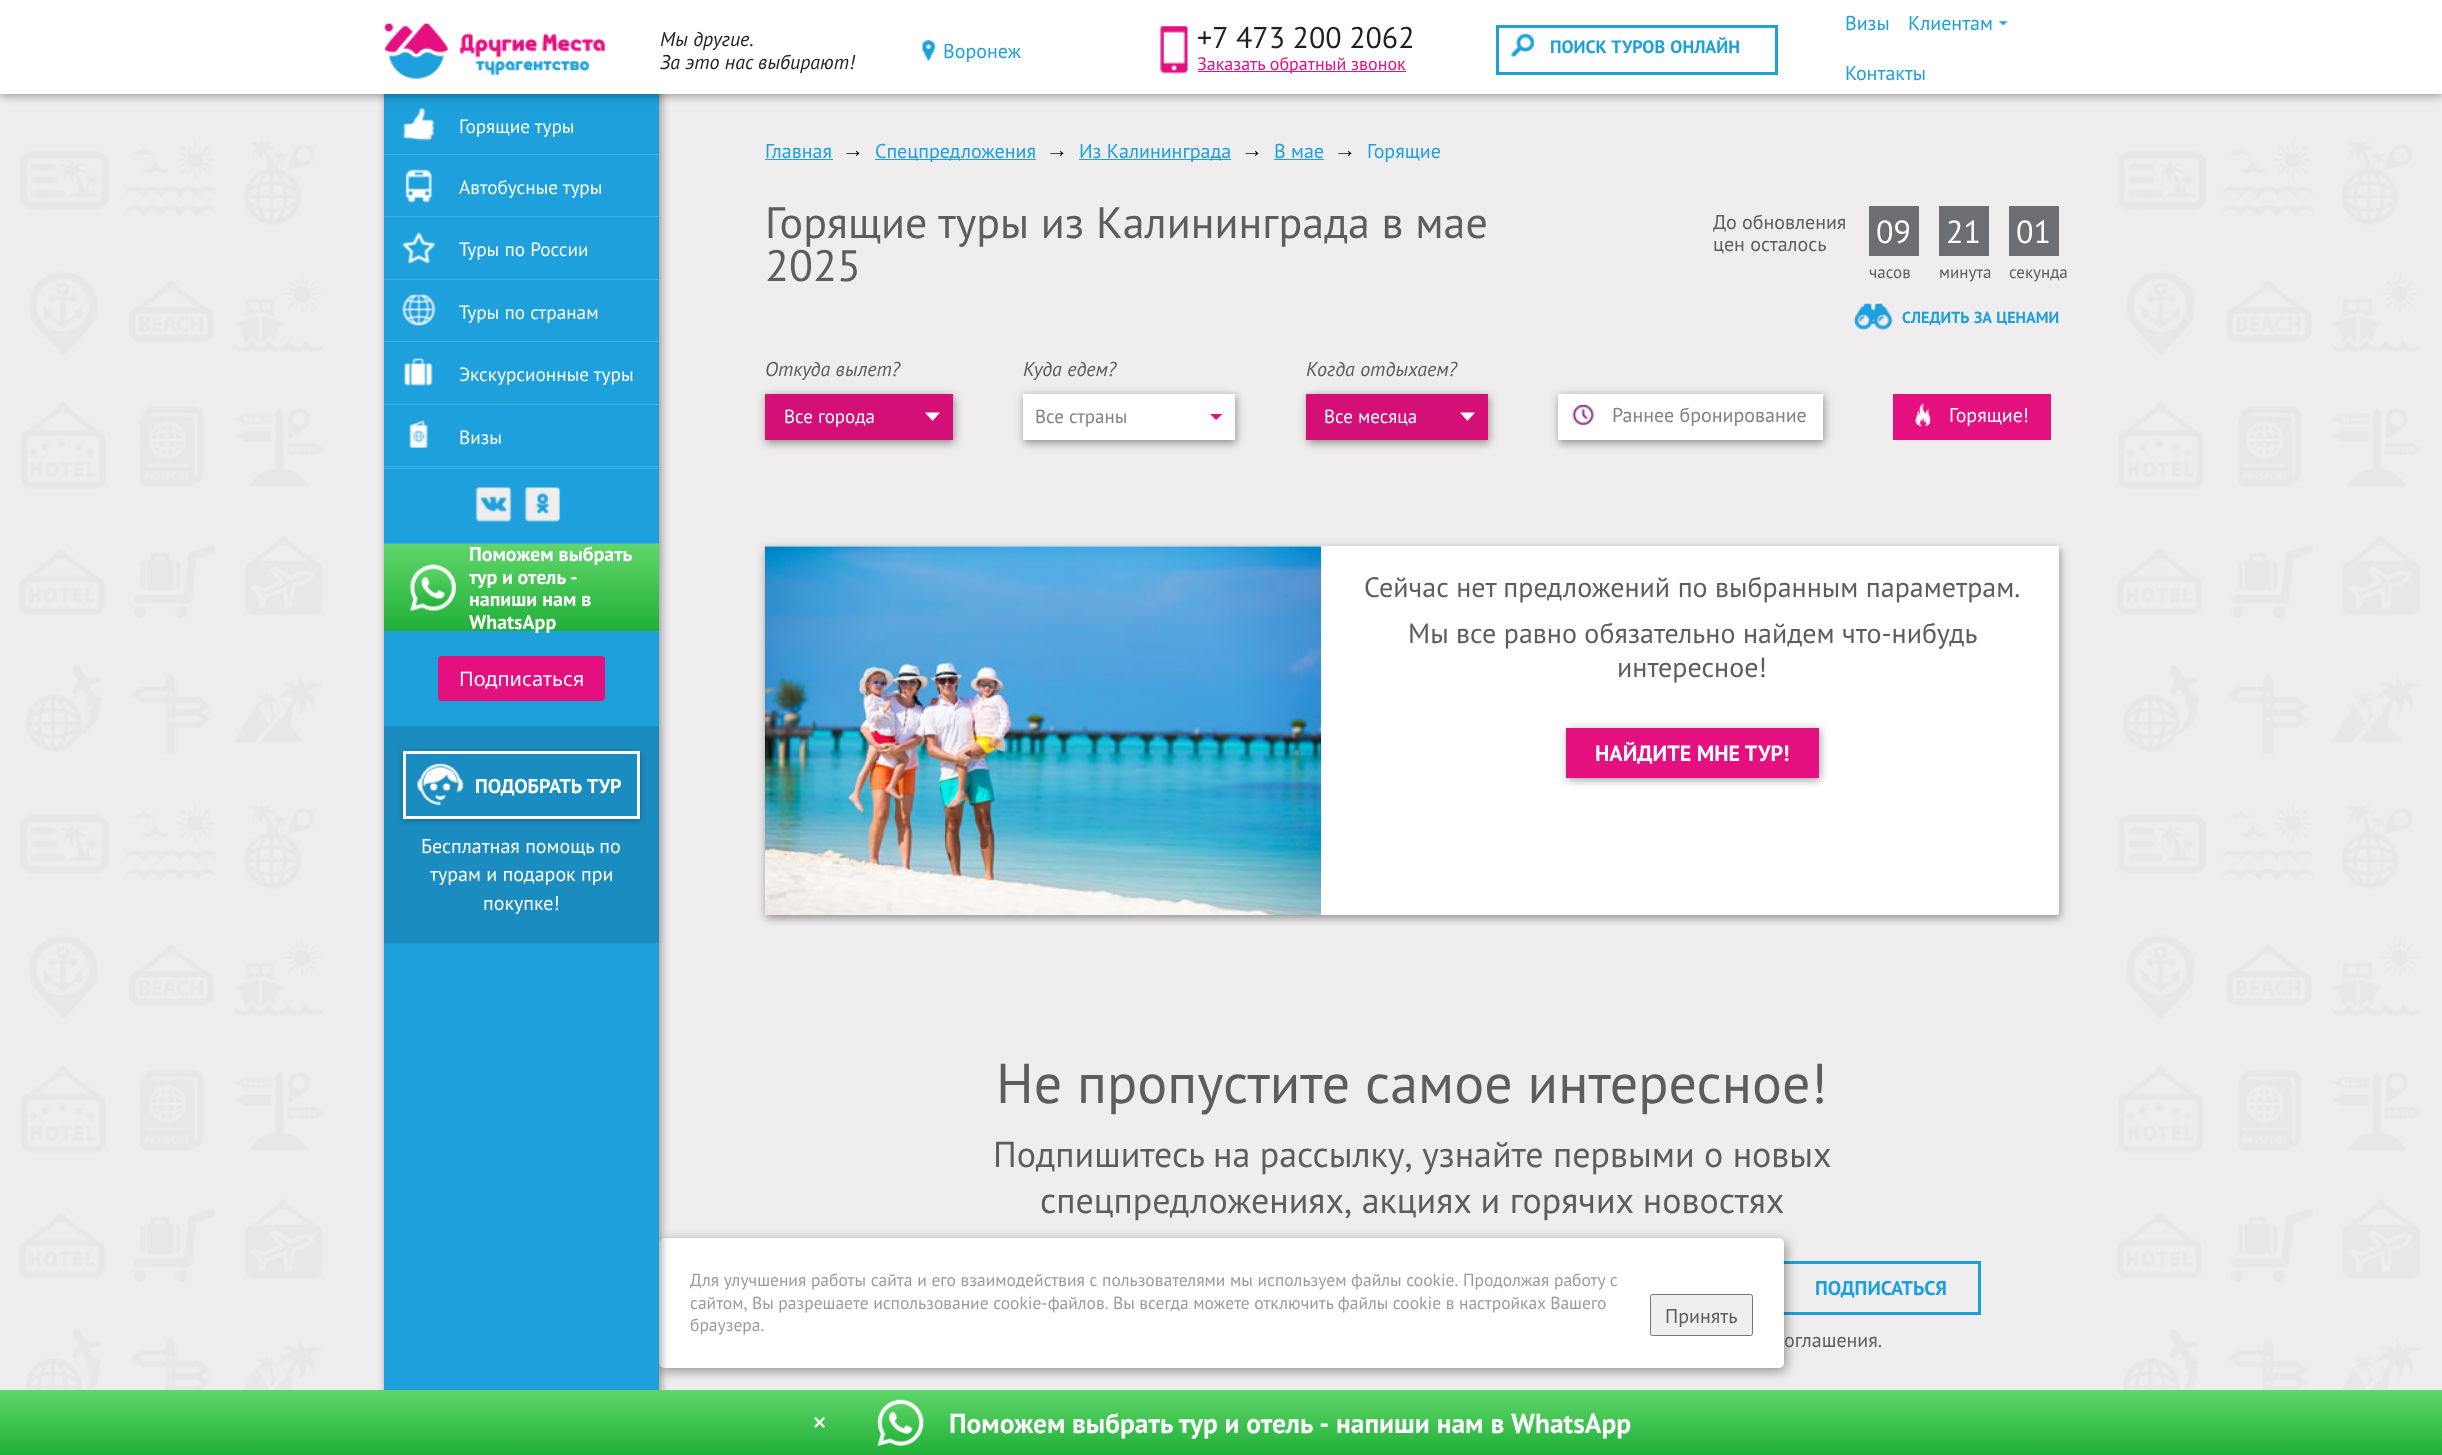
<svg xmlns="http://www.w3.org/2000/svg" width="2442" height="1455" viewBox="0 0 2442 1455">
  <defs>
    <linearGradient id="g1" gradientUnits="userSpaceOnUse" x1="521" y1="631" x2="521" y2="544"><stop offset="0" stop-color="rgb(32,176,56)"/><stop offset="1" stop-color="rgb(96,214,106)"/></linearGradient>
    <clipPath id="clip1"><path d="M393 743H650V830H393ZM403 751H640V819H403Z" clip-rule="evenodd"/></clipPath>
    <linearGradient id="g2" gradientUnits="userSpaceOnUse" x1="1221" y1="1455" x2="1221" y2="1390"><stop offset="0" stop-color="rgb(32,176,56)"/><stop offset="1" stop-color="rgb(96,214,106)"/></linearGradient>
  </defs>
  <rect width="100%" height="100%" fill="rgb(239,237,238)"/>
  <image x="19" y="137" width="2402" height="1253" href="pic1.png"/>
  <rect x="1782.5" y="1262.5" width="197" height="51" fill="none" stroke="rgb(29,159,219)" stroke-width="3"/>
  <rect x="661" y="1241" width="1125" height="130" rx="5" fill="rgba(0,0,0,0.4)" filter="blur(6px)"/>
  <rect x="659" y="1238" width="1125" height="130" rx="5" fill="rgb(255,255,255)"/>
  <rect x="386" y="0" width="275" height="1455" fill="rgba(0,0,0,0.4)" filter="blur(4px)"/>
  <rect x="384" y="94" width="275" height="1296" fill="rgb(30,160,220)"/>
  <image x="403" y="108" width="32" height="33" href="pic7.png"/>
  <rect x="0" y="3" width="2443" height="93" fill="rgba(0,0,0,0.35)" filter="blur(4px)"/>
  <rect x="0" y="0" width="2442" height="94" fill="rgb(255,255,255)"/>
  <image x="384" y="22" width="221" height="57" href="pic2.png"/>
  <g font-family="PT Sans" font-size="20" font-style="italic" fill="rgb(35,31,32)">
    <text>
      <tspan x="660" y="46">Мы другие.</tspan>
      <tspan x="660" y="69">За это нас выбирают!</tspan>
    </text>
  </g>
  <image x="922" y="40" width="14" height="22" href="pic3.png"/>
  <text x="943" y="58" font-family="PT Sans" font-size="20" fill="rgb(29,160,219)">Воронеж</text>
  <image x="1160" y="26" width="28" height="48" href="pic4.png"/>
  <text x="1197" y="48" word-spacing="-0.5" font-family="PT Sans" font-size="30" fill="rgb(35,31,32)">+7 473 200 2062</text>
  <rect x="1198" y="71" width="208" height="1" fill="rgb(228,16,128)"/>
  <text x="1197" y="70" font-family="PT Sans" font-size="18" fill="rgb(228,16,128)">Заказать обратный звонок</text>
  <rect x="1497.5" y="26.5" width="279" height="47" fill="none" stroke="rgb(29,160,219)" stroke-width="3"/>
  <image x="1511" y="33" width="24" height="25" href="pic5.png"/>
  <text x="1550" y="53" word-spacing="1" font-family="PT Sans" font-size="18" font-weight="bold" fill="rgb(29,160,219)">ПОИСК ТУРОВ ОНЛАЙН</text>
  <g font-family="PT Sans" font-size="20" fill="rgb(29,160,219)">
    <text x="1845" y="30">Визы</text>
    <text x="1908" y="30">Клиентам</text>
  </g>
  <image x="1998" y="21" width="10" height="5" href="pic6.png"/>
  <text x="1845" y="80" font-family="PT Sans" font-size="20" fill="rgb(29,160,219)">Контакты</text>
  <rect x="384" y="154" width="275" height="1" fill="rgb(61,175,225)"/>
  <text x="459" y="133" font-family="PT Sans" font-size="19.25" fill="rgb(255,255,255)">Горящие туры</text>
  <rect x="384" y="216" width="275" height="1" fill="rgb(61,175,225)"/>
  <image x="405" y="169" width="28" height="34" href="pic8.png"/>
  <text x="459" y="194" font-family="PT Sans" font-size="19.25" fill="rgb(255,255,255)">Автобусные туры</text>
  <rect x="384" y="279" width="275" height="1" fill="rgb(61,175,225)"/>
  <image x="402" y="231" width="34" height="33" href="pic9.png"/>
  <text x="459" y="256" font-family="PT Sans" font-size="19.25" fill="rgb(255,255,255)">Туры по России</text>
  <rect x="384" y="341" width="275" height="1" fill="rgb(61,175,225)"/>
  <image x="402" y="294" width="34" height="32" href="pic10.png"/>
  <text x="459" y="319" font-family="PT Sans" font-size="19.25" fill="rgb(255,255,255)">Туры по странам</text>
  <rect x="384" y="404" width="275" height="1" fill="rgb(61,175,225)"/>
  <image x="404" y="358" width="29" height="28" href="pic11.png"/>
  <text x="459" y="381" font-family="PT Sans" font-size="19.25" fill="rgb(255,255,255)">Экскурсионные туры</text>
  <rect x="384" y="466" width="275" height="1" fill="rgb(61,175,225)"/>
  <image x="409" y="419" width="20" height="29" href="pic12.png"/>
  <text x="459" y="444" font-family="PT Sans" font-size="19.25" fill="rgb(255,255,255)">Визы</text>
  <rect x="384" y="468" width="275" height="1" fill="rgb(61,175,225)"/>
  <rect x="384" y="543" width="275" height="1" fill="rgb(61,175,225)"/>
  <image x="475" y="487" width="37" height="35" href="pic13.png"/>
  <image x="524" y="487" width="37" height="35" href="pic14.png"/>
  <rect x="384" y="544" width="275" height="87" fill="url(#g1)"/>
  <image x="409" y="564" width="47" height="48" href="pic15.png"/>
  <g font-family="PT Sans" font-size="20" font-weight="bold" fill="rgb(255,255,255)">
    <text>
      <tspan x="469" y="561">Поможем выбрать</tspan>
      <tspan x="469" y="584" word-spacing="-0.5">тур и отель -</tspan>
      <tspan x="469" y="606">напиши нам в</tspan>
      <tspan x="469" y="629">WhatsApp</tspan>
    </text>
  </g>
  <rect x="438" y="656" width="167" height="45" rx="4" fill="rgb(228,16,128)"/>
  <text x="459" y="686" font-family="Noto Sans" font-size="20" fill="rgb(255,255,255)">Подписаться</text>
  <rect x="384" y="726" width="275" height="217" fill="rgb(26,140,192)"/>
  <g clip-path="url(#clip1)">
    <rect x="403" y="753" width="237" height="67" fill="rgba(0,0,0,0.3)" filter="blur(3px)"/>
  </g>
  <rect x="404.5" y="752.5" width="234" height="65" fill="none" stroke="rgb(255,255,255)" stroke-width="3"/>
  <image x="417" y="763" width="47" height="43" href="pic16.png"/>
  <text x="475" y="793" word-spacing="1" font-family="PT Sans" font-size="20" font-weight="bold" fill="rgb(255,255,255)">ПОДОБРАТЬ ТУР</text>
  <g font-family="PT Sans" font-size="20" fill="rgb(255,255,255)">
    <text x="421" y="853">Бесплатная помощь по</text>
    <text x="430" y="881">турам и подарок при</text>
    <text x="483" y="910">покупке!</text>
  </g>
  <text x="765" y="158" font-family="PT Sans" font-size="20" fill="rgb(29,160,219)">Главная</text>
  <rect x="765" y="159" width="68" height="1" fill="rgb(29,160,219)"/>
  <text x="842" y="157" font-family="Liberation Sans" font-size="22" fill="rgb(0,0,0)">→</text>
  <rect x="875" y="159" width="161" height="1" fill="rgb(29,160,219)"/>
  <text x="875" y="158" font-family="PT Sans" font-size="20" fill="rgb(29,160,219)">Спецпредложения</text>
  <text x="1046" y="157" font-family="Liberation Sans" font-size="22" fill="rgb(0,0,0)">→</text>
  <rect x="1079" y="159" width="152" height="1" fill="rgb(29,160,219)"/>
  <text x="1079" y="158" font-family="PT Sans" font-size="20" fill="rgb(29,160,219)">Из Калининграда</text>
  <text x="1241" y="157" font-family="Liberation Sans" font-size="22" fill="rgb(0,0,0)">→</text>
  <text x="1274" y="158" font-family="PT Sans" font-size="20" fill="rgb(29,160,219)">В мае</text>
  <rect x="1274" y="159" width="50" height="1" fill="rgb(29,160,219)"/>
  <text x="1334" y="157" font-family="Liberation Sans" font-size="22" fill="rgb(0,0,0)">→</text>
  <text x="1367" y="158" font-family="PT Sans" font-size="20" fill="rgb(29,160,219)">Горящие</text>
  <g font-family="PT Sans" font-size="44" fill="rgb(93,93,95)">
    <text>
      <tspan x="765" y="238">Горящие туры из Калининграда в мае</tspan>
      <tspan x="765" y="281">2025</tspan>
    </text>
  </g>
  <g font-family="PT Sans" font-size="20" fill="rgb(93,93,95)">
    <text>
      <tspan x="1713" y="229">До обновления</tspan>
      <tspan x="1713" y="251">цен осталось</tspan>
    </text>
  </g>
  <rect x="1869" y="206" width="50" height="50" fill="rgb(109,110,113)"/>
  <text x="1876" y="243" font-family="PT Sans" font-size="32" fill="rgb(255,255,255)">09</text>
  <text x="1869" y="278" font-family="PT Sans" font-size="17" fill="rgb(93,93,95)">часов</text>
  <rect x="1939" y="206" width="50" height="50" fill="rgb(109,110,113)"/>
  <text x="1946" y="243" font-family="PT Sans" font-size="32" fill="rgb(255,255,255)">21</text>
  <text x="1939" y="278" font-family="PT Sans" font-size="17" fill="rgb(93,93,95)">минута</text>
  <rect x="2009" y="206" width="50" height="50" fill="rgb(109,110,113)"/>
  <text x="2016" y="243" font-family="PT Sans" font-size="32" fill="rgb(255,255,255)">01</text>
  <text x="2009" y="278" font-family="PT Sans" font-size="17" fill="rgb(93,93,95)">секунда</text>
  <image x="1853" y="303" width="40" height="28" href="pic17.png"/>
  <text x="1902" y="323" word-spacing="1" font-family="PT Sans" font-size="16" font-weight="bold" fill="rgb(29,160,219)">СЛЕДИТЬ ЗА ЦЕНАМИ</text>
  <text x="765" y="376" font-family="PT Sans" font-size="20" font-style="italic" fill="rgb(93,93,95)">Откуда вылет?</text>
  <rect x="766" y="396" width="188" height="47" fill="rgba(0,0,0,0.4)" filter="blur(4px)"/>
  <rect x="765" y="394" width="188" height="46" fill="rgb(212,15,119)"/>
  <text x="784" y="423" font-family="PT Sans" font-size="19" fill="rgb(255,255,255)">Все города</text>
  <path d="M925 412.5H940L932.5 421Z" fill="rgb(255,255,255)"/>
  <text x="1023" y="376" font-family="PT Sans" font-size="20" font-style="italic" fill="rgb(93,93,95)">Куда едем?</text>
  <rect x="1024" y="396" width="212" height="47" fill="rgba(0,0,0,0.4)" filter="blur(4px)"/>
  <rect x="1023" y="394" width="212" height="46" fill="rgb(255,255,255)"/>
  <text x="1035" y="423" font-family="PT Sans" font-size="19" fill="rgb(128,130,133)">Все страны</text>
  <path d="M1210 414H1222.5L1216 420Z" fill="rgb(228,16,129)"/>
  <text x="1306" y="376" font-family="PT Sans" font-size="20" font-style="italic" fill="rgb(93,93,95)">Когда отдыхаем?</text>
  <rect x="1308" y="396" width="181" height="47" fill="rgba(0,0,0,0.4)" filter="blur(4px)"/>
  <rect x="1306" y="394" width="182" height="46" fill="rgb(212,15,119)"/>
  <text x="1324" y="423" font-family="PT Sans" font-size="19" fill="rgb(255,255,255)">Все месяца</text>
  <path d="M1460 412.5H1475L1467.5 421Z" fill="rgb(255,255,255)"/>
  <rect x="1559" y="396" width="265" height="47" fill="rgba(0,0,0,0.4)" filter="blur(4px)"/>
  <rect x="1558" y="394" width="265" height="46" fill="rgb(255,255,255)"/>
  <image x="1572" y="405" width="22" height="21" href="pic18.png"/>
  <text x="1612" y="422" font-family="PT Sans" font-size="20" fill="rgb(128,130,133)">Раннее бронирование</text>
  <rect x="1893" y="394" width="158" height="46" fill="rgb(228,16,128)"/>
  <image x="1915" y="403" width="16" height="24" href="pic19.png"/>
  <text x="1949" y="422" font-family="PT Sans" font-size="20" fill="rgb(255,255,255)">Горящие!</text>
  <rect x="766" y="549" width="1294" height="369" fill="rgba(0,0,0,0.4)" filter="blur(4px)"/>
  <rect x="765" y="546" width="1294" height="369" fill="rgb(255,255,255)"/>
  <image x="765" y="546" width="557" height="369" href="pic20.png"/>
  <g font-family="PT Sans" font-size="28" fill="rgb(93,93,95)">
    <text x="1364" y="597">Сейчас нет предложений по выбранным параметрам.</text>
    <text x="1408" y="643">Мы все равно обязательно найдем что-нибудь</text>
    <text x="1617" y="677">интересное!</text>
  </g>
  <rect x="1568" y="730" width="252" height="50" fill="rgba(0,0,0,0.4)" filter="blur(4px)"/>
  <rect x="1566" y="728" width="253" height="50" fill="rgb(228,16,128)"/>
  <text x="1595" y="761" font-family="PT Sans" font-size="22" font-weight="bold" fill="rgb(255,255,255)">НАЙДИТЕ МНЕ ТУР!</text>
  <text x="996" y="1103" font-family="PT Sans" font-size="56" fill="rgb(93,93,95)">Не пропустите самое интересное!</text>
  <g font-family="PT Sans" font-size="36" fill="rgb(93,93,95)">
    <text x="993" y="1167" word-spacing="-0.25">Подпишитесь на рассылку, узнайте первыми о новых</text>
    <text x="1040" y="1213">спецпредложениях, акциях и горячих новостях</text>
  </g>
  <text x="1815" y="1295" font-family="PT Sans" font-size="20" font-weight="bold" fill="rgb(29,160,219)">ПОДПИСАТЬСЯ</text>
  <text x="1784" y="1347" font-family="PT Sans" font-size="20" fill="rgb(93,93,95)">оглашения.</text>
  <g font-family="PT Sans" font-size="17.5" fill="rgb(155,155,155)">
    <text>
      <tspan x="690" y="1286">Для улучшения работы сайта и его взаимодействия с пользователями мы используем файлы cookie. Продолжая работу с</tspan>
      <tspan x="690" y="1309" word-spacing="-0.1">сайтом, Вы разрешаете использование cookie-файлов. Вы всегда можете отключить файлы cookie в настройках Вашего</tspan>
      <tspan x="690" y="1331">браузера.</tspan>
    </text>
  </g>
  <rect x="1650.5" y="1294.5" width="102" height="41" rx="2" fill="rgb(239,239,239)" stroke="rgb(118,118,118)"/>
  <text x="1665" y="1323" font-family="PT Sans" font-size="20" fill="rgb(93,93,95)">Принять</text>
  <rect x="0" y="1390" width="2442" height="65" fill="url(#g2)"/>
  <text x="812" y="1429" font-family="DejaVu Sans" font-size="17.5" font-weight="bold" fill="rgb(255,255,255)">✕</text>
  <image x="877" y="1399" width="47" height="47" href="pic21.png"/>
  <g font-family="PT Sans" font-size="27.5" font-weight="bold" fill="rgb(255,255,255)">
    <text x="949" y="1433" word-spacing="-0.25">Поможем выбрать тур и отель -</text>
    <text x="1336" y="1433">напиши нам в WhatsApp</text>
  </g>
</svg>
